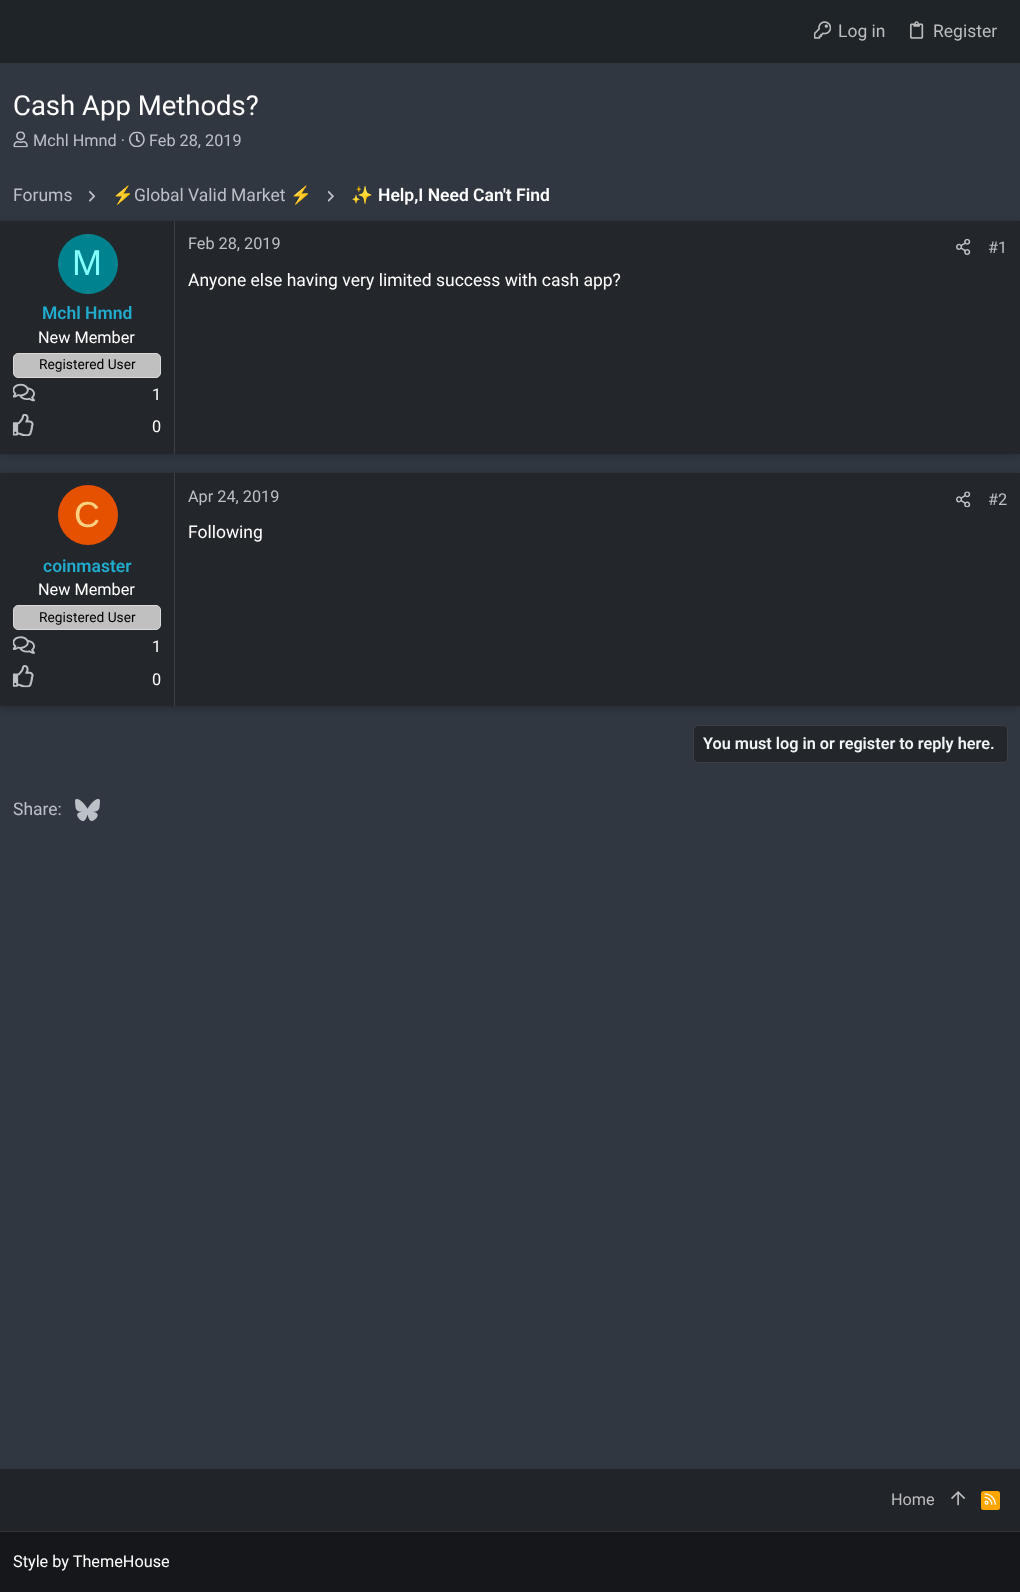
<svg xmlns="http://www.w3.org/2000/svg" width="1020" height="1592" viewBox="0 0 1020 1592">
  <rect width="100%" height="100%" fill="rgb(48,55,64)"/>
  <rect x="0" y="0" width="1020" height="63" fill="rgb(31,36,41)"/>
  <image x="814" y="21" width="17" height="18" href="pic1.png"/>
  <text x="838" y="37" font-family="Roboto" font-size="17.5" fill="rgb(188,189,191)">Log in</text>
  <image x="910" y="21" width="14" height="18" href="pic2.png"/>
  <text x="933" y="37" font-family="Roboto" font-size="17.5" fill="rgb(188,189,191)">Register</text>
  <text x="13" y="115" font-family="Roboto" font-size="27.5" fill="rgb(255,255,255)">Cash App Methods?</text>
  <image x="13" y="131" width="15" height="17" href="pic3.png"/>
  <text x="33" y="146" font-family="Roboto" font-size="16.25" fill="rgb(188,192,199)">Mchl Hmnd ·</text>
  <image x="129" y="131" width="16" height="17" href="pic4.png"/>
  <text x="149" y="146" font-family="Roboto" font-size="16.25" fill="rgb(188,192,199)">Feb 28, 2019</text>
  <text x="13" y="201" font-family="Roboto" font-size="17.5" fill="rgb(188,192,199)">Forums</text>
  <image x="89" y="190" width="6" height="12" href="pic5.png"/>
  <text x="112" y="201" font-family="Noto Color Emoji" font-size="17.5" fill="rgb(188,192,199)">⚡</text>
  <text x="134" y="201" font-family="Roboto" font-size="17.5" fill="rgb(188,192,199)">Global Valid Market</text>
  <text x="290" y="201" font-family="Noto Color Emoji" font-size="17.5" fill="rgb(188,192,199)">⚡</text>
  <image x="328" y="190" width="6" height="12" href="pic6.png"/>
  <text x="351" y="201" font-family="Noto Color Emoji" font-size="17.5" font-weight="bold" fill="rgb(255,255,255)">✨</text>
  <text x="378" y="201" font-family="Roboto" font-size="17.5" font-weight="600" fill="rgb(255,255,255)">Help,I Need Can't Find</text>
  <rect x="0" y="223" width="1020" height="232" fill="rgba(0,0,0,0.2)" filter="blur(3px)"/>
  <rect x="0" y="221" width="1020" height="233" fill="rgb(35,38,42)"/>
  <rect x="174" y="221" width="1" height="233" fill="rgb(61,64,68)"/>
  <circle cx="88" cy="264" r="30" fill="rgb(0,131,143)"/>
  <text x="72" y="275" font-family="Liberation Sans" font-size="36" fill="rgb(132,255,255)">M</text>
  <text x="42" y="319" font-family="Roboto" font-size="17.5" font-weight="600" fill="rgb(33,171,205)">Mchl Hmnd</text>
  <text x="38" y="343" font-family="Roboto" font-size="16.25" fill="rgb(255,255,255)">New Member</text>
  <rect x="13.5" y="353.5" width="147" height="24" rx="4.5" fill="rgb(192,192,192)" stroke="rgb(218,218,218)"/>
  <text x="39" y="369" font-family="Roboto" font-size="13.75" fill="rgb(0,0,0)">Registered User</text>
  <image x="12" y="383" width="23" height="19" href="pic7.png"/>
  <text x="152" y="400" font-family="Roboto" font-size="16.25" fill="rgb(255,255,255)">1</text>
  <image x="12" y="414" width="22" height="22" href="pic8.png"/>
  <text x="152" y="432" font-family="Roboto" font-size="16.25" fill="rgb(255,255,255)">0</text>
  <text x="188" y="249" font-family="Roboto" font-size="16.25" fill="rgb(188,192,199)">Feb 28, 2019</text>
  <image x="956" y="239" width="15" height="16" href="pic9.png"/>
  <text x="988" y="253" font-family="Roboto" font-size="16.25" fill="rgb(188,192,199)">#1</text>
  <text x="188" y="286" font-family="Roboto" font-size="17.5" fill="rgb(255,255,255)">Anyone else having very limited success with cash app?</text>
  <rect x="0" y="474" width="1020" height="234" fill="rgba(0,0,0,0.2)" filter="blur(3px)"/>
  <rect x="0" y="473" width="1020" height="233" fill="rgb(35,38,42)"/>
  <rect x="174" y="473" width="1" height="233" fill="rgb(61,64,68)"/>
  <circle cx="88" cy="515" r="30" fill="rgb(230,81,0)"/>
  <text x="74" y="527" font-family="Liberation Sans" font-size="36" fill="rgb(255,209,128)">C</text>
  <text x="43" y="572" font-family="Roboto" font-size="17.5" font-weight="600" fill="rgb(33,171,205)">coinmaster</text>
  <text x="38" y="595" font-family="Roboto" font-size="16.25" fill="rgb(255,255,255)">New Member</text>
  <rect x="13.5" y="605.5" width="147" height="24" rx="4.5" fill="rgb(192,192,192)" stroke="rgb(218,218,218)"/>
  <text x="39" y="622" font-family="Roboto" font-size="13.75" fill="rgb(0,0,0)">Registered User</text>
  <image x="12" y="636" width="23" height="18" href="pic10.png"/>
  <text x="152" y="652" font-family="Roboto" font-size="16.25" fill="rgb(255,255,255)">1</text>
  <image x="12" y="665" width="22" height="23" href="pic11.png"/>
  <text x="152" y="685" font-family="Roboto" font-size="16.25" fill="rgb(255,255,255)">0</text>
  <text x="188" y="502" font-family="Roboto" font-size="16.25" fill="rgb(188,192,199)">Apr 24, 2019</text>
  <image x="956" y="491" width="15" height="17" href="pic12.png"/>
  <text x="988" y="505" font-family="Roboto" font-size="16.25" fill="rgb(188,192,199)">#2</text>
  <text x="188" y="538" font-family="Roboto" font-size="17.5" fill="rgb(255,255,255)">Following</text>
  <rect x="693" y="725" width="315" height="38" rx="5" fill="rgb(35,38,42)"/>
  <rect x="693.5" y="725.5" width="314" height="37" rx="4.5" fill="none" stroke="rgba(255,255,255,0.12)"/>
  <text x="703" y="749" font-family="Roboto" font-size="16.25" font-weight="600" fill="rgb(241,245,248)">You must log in or register to reply here.</text>
  <text x="13" y="815" font-family="Roboto" font-size="17.5" fill="rgb(188,192,199)">Share:</text>
  <image x="75" y="798" width="25" height="24" href="pic13.png"/>
  <rect x="0" y="1469" width="1020" height="62" fill="rgb(33,36,40)"/>
  <text x="891" y="1505" font-family="Roboto" font-size="16.25" fill="rgb(188,189,191)">Home</text>
  <image x="951" y="1491" width="14" height="15" href="pic14.png"/>
  <rect x="981" y="1491" width="19" height="19" rx="2.5" fill="rgb(255,165,0)"/>
  <image x="984" y="1493" width="12" height="12" href="pic15.png"/>
  <rect x="0" y="1532" width="1020" height="60" fill="rgb(21,23,26)"/>
  <rect x="0" y="1531" width="1020" height="1" fill="rgb(49,51,53)"/>
  <text x="13" y="1567" font-family="Roboto" font-size="16.25" fill="rgb(255,255,255)">Style by ThemeHouse</text>
</svg>
